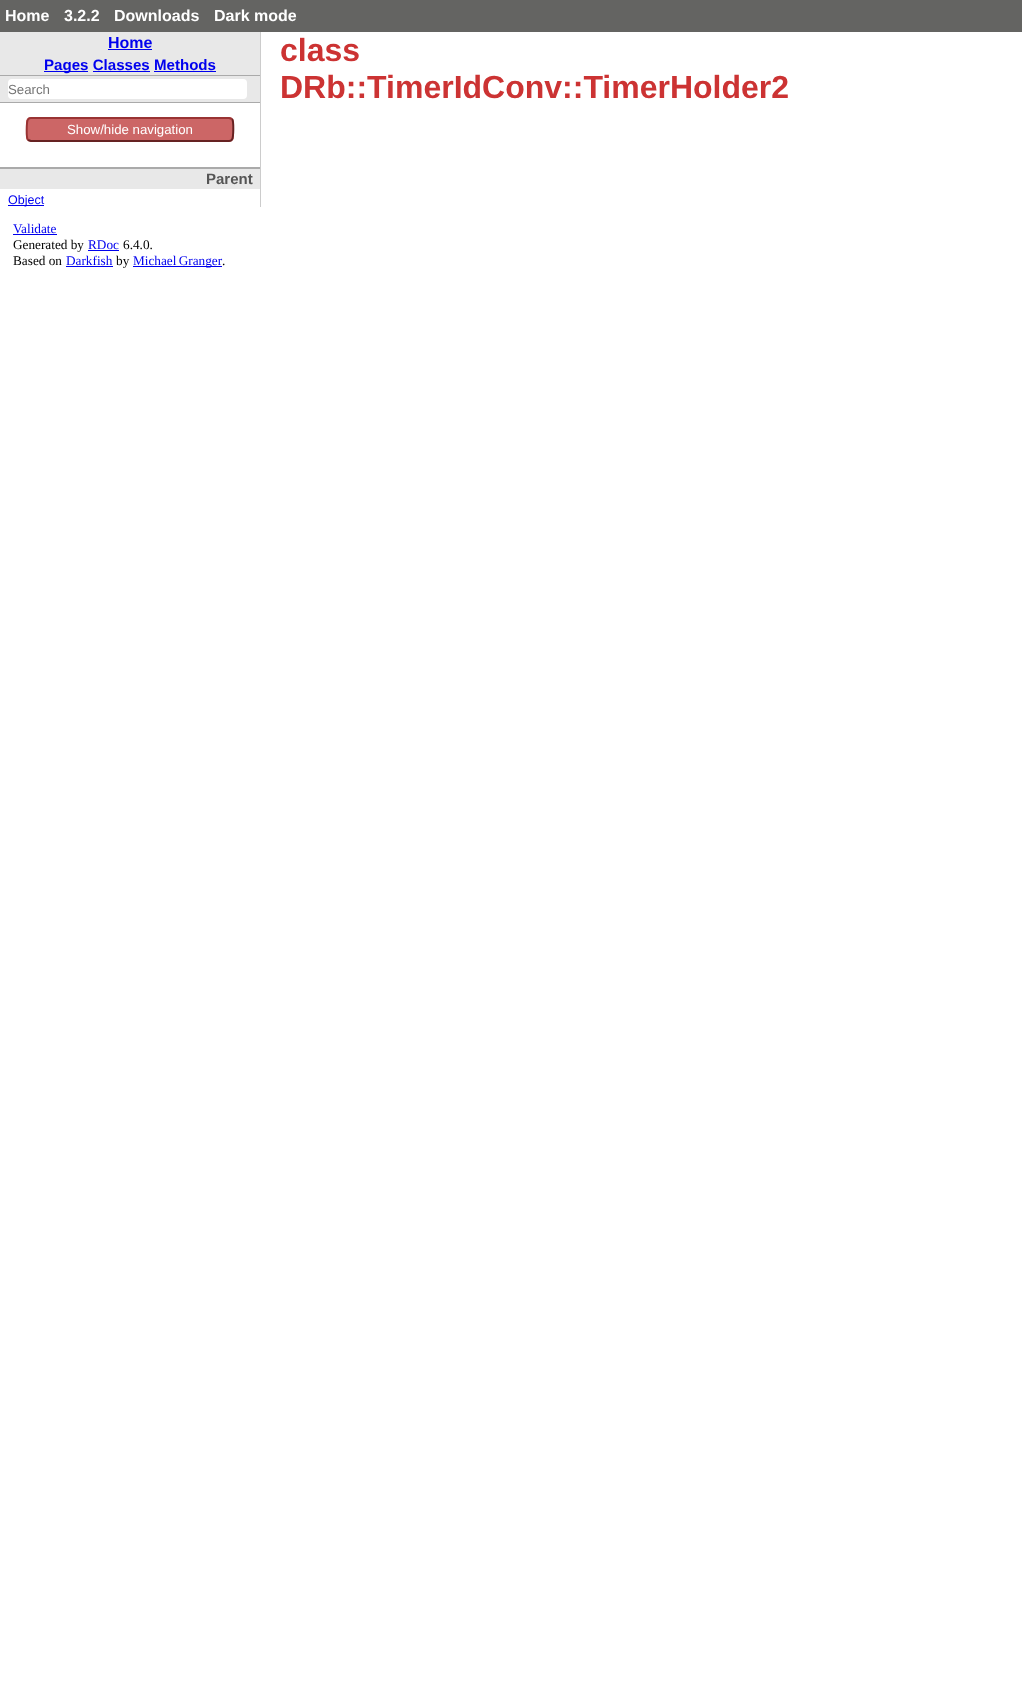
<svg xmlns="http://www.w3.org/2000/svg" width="1022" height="1688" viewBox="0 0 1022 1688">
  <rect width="100%" height="100%" fill="rgb(255,255,255)"/>
  <rect x="0" y="0" width="1022" height="32" fill="rgb(100,100,98)"/>
  <g font-family="Liberation Sans" font-size="16" font-weight="bold" fill="rgb(255,255,255)">
    <text x="5" y="21">Home</text>
    <text x="64" y="21">3.2.2</text>
    <text x="114" y="21">Downloads</text>
    <text x="214" y="21">Dark mode</text>
  </g>
  <rect x="260" y="32" width="1" height="175" fill="rgb(204,204,204)"/>
  <rect x="0" y="32" width="260" height="43" fill="rgb(232,232,232)"/>
  <text x="108" y="48" font-family="Liberation Sans" font-size="16" font-weight="bold" fill="rgb(0,0,238)">Home</text>
  <rect x="108" y="49" width="44" height="1" fill="rgb(0,0,238)"/>
  <rect x="44" y="71" width="44" height="1" fill="rgb(0,0,238)"/>
  <text x="44" y="70" font-family="Liberation Sans" font-size="15.1" font-weight="bold" fill="rgb(0,0,238)">Pages Classes Methods</text>
  <rect x="93" y="71" width="57" height="1" fill="rgb(0,0,238)"/>
  <rect x="154" y="71" width="62" height="1" fill="rgb(0,0,238)"/>
  <rect x="0" y="76" width="260" height="26" fill="rgb(232,232,232)"/>
  <rect x="0" y="75" width="260" height="1" fill="rgb(170,170,170)"/>
  <rect x="0" y="102" width="260" height="1" fill="rgb(170,170,170)"/>
  <rect x="8" y="79" width="239" height="20" rx="4" fill="rgb(255,255,255)"/>
  <text x="8" y="94" font-family="Liberation Sans" font-size="13.25" fill="rgb(117,117,117)">Search</text>
  <rect x="26" y="117" width="208" height="25" rx="5" fill="rgb(204,102,102)"/>
  <path d="M232 119C234 121 233.5 137.5 232 139.5C231.5 140.5 230 141 229 141H31L28 140" fill="none" stroke="rgb(102,34,34)" stroke-width="2"/>
  <path d="M28 140C26 138 26.5 121.5 28 119.5C28.5 118.5 30 118 31 118H229L232 119" fill="none" stroke="rgb(153,51,51)" stroke-width="2"/>
  <text x="67" y="134" font-family="Liberation Sans" font-size="13.25" fill="rgb(255,255,255)">Show/hide navigation</text>
  <rect x="0" y="167" width="260" height="2" fill="rgb(170,170,170)"/>
  <rect x="0" y="169" width="260" height="20" fill="rgb(232,232,232)"/>
  <text x="206" y="184" font-family="Liberation Sans" font-size="15" font-weight="bold" fill="rgb(85,85,85)">Parent</text>
  <rect x="8" y="205" width="36" height="1" fill="rgb(0,0,238)"/>
  <text x="8" y="204" font-family="Liberation Sans" font-size="12.5" fill="rgb(0,0,238)">Object</text>
  <g font-family="Liberation Sans" font-size="32" font-weight="bold" fill="rgb(204,51,51)">
    <text>
      <tspan x="280" y="61">class</tspan>
      <tspan x="280" y="98">DRb::TimerIdConv::TimerHolder2</tspan>
    </text>
  </g>
  <text x="13" y="233" font-family="Liberation Serif" font-size="13.25" fill="rgb(0,0,238)">Validate</text>
  <rect x="13" y="234" width="44" height="1" fill="rgb(0,0,238)"/>
  <text x="13" y="249" font-family="Liberation Serif" font-size="13.25" fill="rgb(0,0,0)">Generated by</text>
  <text x="88" y="249" font-family="Liberation Serif" font-size="13.25" fill="rgb(0,0,238)">RDoc</text>
  <rect x="88" y="250" width="31" height="1" fill="rgb(0,0,238)"/>
  <g font-family="Liberation Serif" font-size="13.25" fill="rgb(0,0,0)">
    <text x="123" y="249">6.4.0.</text>
    <text x="13" y="265">Based on</text>
  </g>
  <text x="66" y="265" font-family="Liberation Serif" font-size="13.25" fill="rgb(0,0,238)">Darkfish</text>
  <rect x="66" y="266" width="47" height="1" fill="rgb(0,0,238)"/>
  <text x="116" y="265" font-family="Liberation Serif" font-size="13.25" fill="rgb(0,0,0)">by</text>
  <rect x="133" y="266" width="89" height="1" fill="rgb(0,0,238)"/>
  <text x="133" y="265" word-spacing="-1" font-family="Liberation Serif" font-size="13.25" fill="rgb(0,0,238)">Michael Granger</text>
  <text x="222" y="265" font-family="Liberation Serif" font-size="13.25" fill="rgb(0,0,0)">.</text>
</svg>
